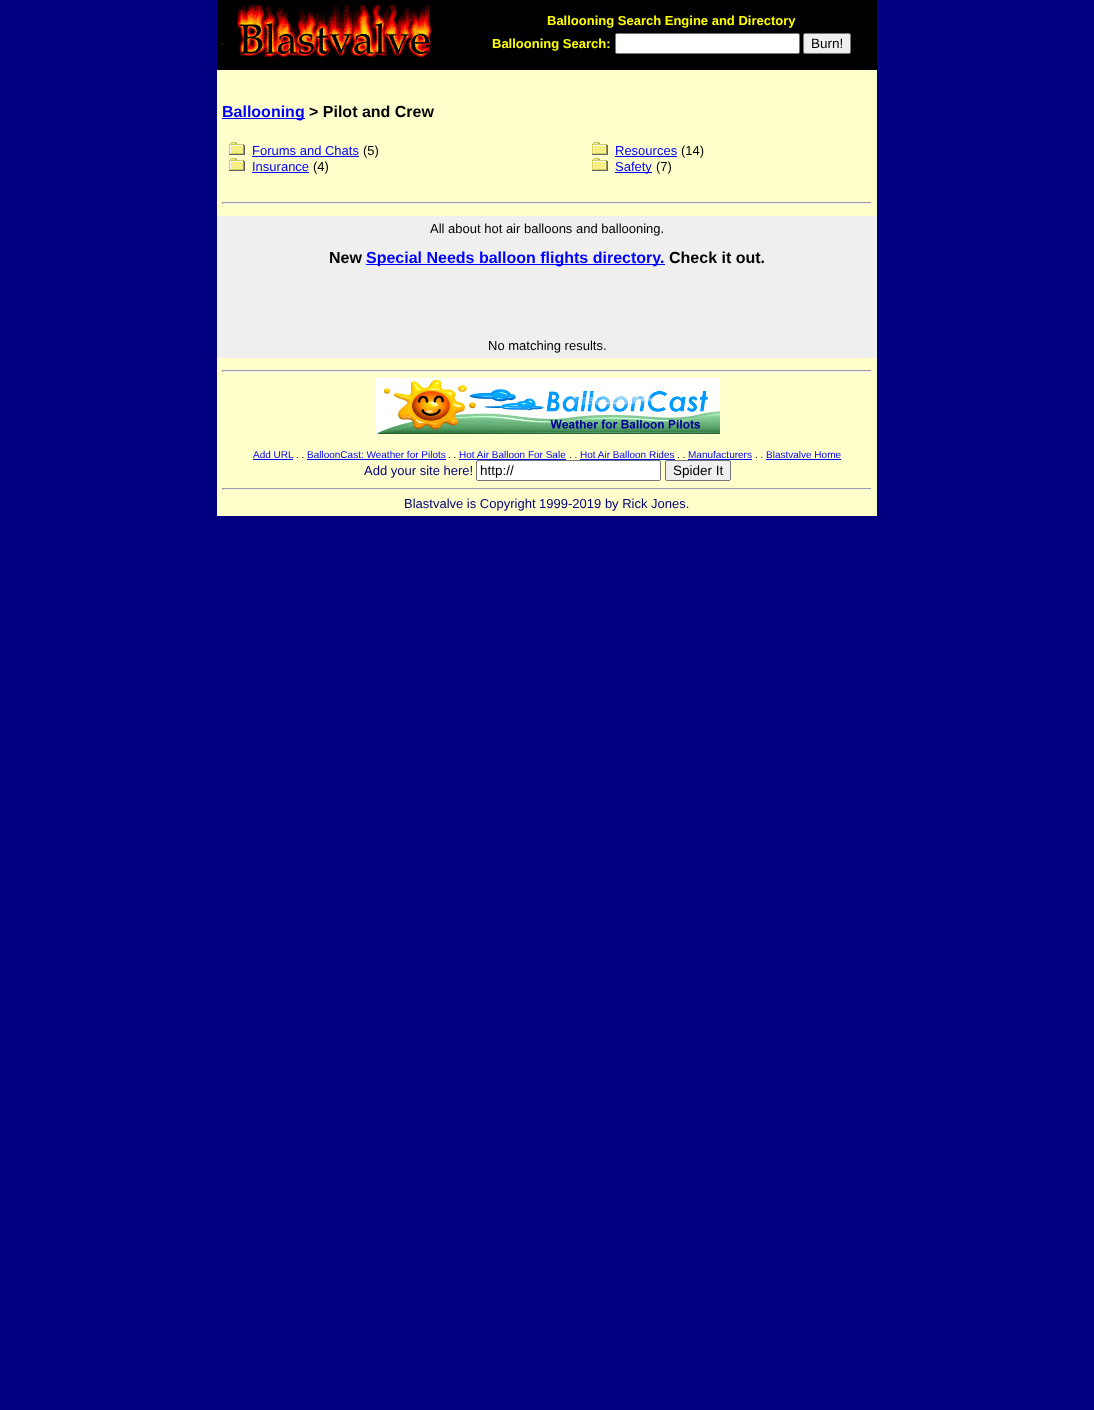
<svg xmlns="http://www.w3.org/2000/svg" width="1094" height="1410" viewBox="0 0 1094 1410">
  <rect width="100%" height="100%" fill="rgb(0,0,128)"/>
  <rect x="217" y="70" width="660" height="446" fill="rgb(255,255,204)"/>
  <rect x="217" y="0" width="660" height="70" fill="rgb(0,0,0)"/>
  <image x="222" y="5" width="210" height="52" href="pic1.png"/>
  <g font-family="Liberation Sans" font-size="13" font-weight="bold" fill="rgb(255,255,0)">
    <text x="547" y="25">Ballooning Search Engine and Directory</text>
    <text x="492" y="48">Ballooning Search:</text>
  </g>
  <rect x="615.5" y="33.5" width="184" height="20" rx="1.5" fill="rgb(255,255,255)" stroke="rgb(118,118,118)"/>
  <rect x="803.5" y="33.5" width="47" height="20" rx="1.5" fill="rgb(239,239,239)" stroke="rgb(118,118,118)"/>
  <text x="811" y="48" font-family="Liberation Sans" font-size="13.5" fill="rgb(0,0,0)">Burn!</text>
  <rect x="222" y="118" width="83" height="1" fill="rgb(0,0,255)"/>
  <text x="222" y="117" font-family="Liberation Sans" font-size="16" font-weight="bold" fill="rgb(0,0,255)">Ballooning</text>
  <text x="309" y="117" font-family="Liberation Sans" font-size="16" font-weight="bold" fill="rgb(0,0,0)">&gt; Pilot and Crew</text>
  <image x="229" y="142" width="16" height="13" href="pic2.png"/>
  <text x="252" y="155" font-family="Liberation Sans" font-size="13" fill="rgb(0,0,255)">Forums and Chats</text>
  <rect x="252" y="156" width="107" height="1" fill="rgb(0,0,255)"/>
  <text x="363" y="155" font-family="Liberation Sans" font-size="13" fill="rgb(0,0,0)">(5)</text>
  <image x="229" y="158" width="16" height="13" href="pic2.png"/>
  <text x="252" y="171" font-family="Liberation Sans" font-size="13" fill="rgb(0,0,255)">Insurance</text>
  <rect x="252" y="172" width="57" height="1" fill="rgb(0,0,255)"/>
  <text x="313" y="171" font-family="Liberation Sans" font-size="13" fill="rgb(0,0,0)">(4)</text>
  <image x="592" y="142" width="16" height="13" href="pic2.png"/>
  <text x="615" y="155" font-family="Liberation Sans" font-size="13" fill="rgb(0,0,255)">Resources</text>
  <rect x="615" y="156" width="62" height="1" fill="rgb(0,0,255)"/>
  <text x="681" y="155" font-family="Liberation Sans" font-size="13" fill="rgb(0,0,0)">(14)</text>
  <image x="592" y="158" width="16" height="13" href="pic2.png"/>
  <rect x="615" y="172" width="37" height="1" fill="rgb(0,0,255)"/>
  <text x="615" y="171" font-family="Liberation Sans" font-size="13" fill="rgb(0,0,255)">Safety</text>
  <text x="656" y="171" font-family="Liberation Sans" font-size="13" fill="rgb(0,0,0)">(7)</text>
  <rect x="222" y="202" width="650" height="1" fill="rgb(159,159,159)"/>
  <rect x="871" y="202" width="1" height="2" fill="rgb(238,238,238)"/>
  <rect x="222" y="203" width="650" height="1" fill="rgb(238,238,238)"/>
  <rect x="222" y="202" width="1" height="2" fill="rgb(159,159,159)"/>
  <rect x="217" y="216" width="660" height="142" fill="rgb(239,239,239)"/>
  <text x="430" y="233" font-family="Liberation Sans" font-size="13" fill="rgb(0,0,0)">All about hot air balloons and ballooning.</text>
  <text x="329" y="263" font-family="Liberation Sans" font-size="16" font-weight="bold" fill="rgb(0,0,0)">New</text>
  <rect x="366" y="264" width="299" height="1" fill="rgb(0,0,255)"/>
  <text x="366" y="263" font-family="Liberation Sans" font-size="16" font-weight="bold" fill="rgb(0,0,255)">Special Needs balloon flights directory.</text>
  <text x="669" y="263" font-family="Liberation Sans" font-size="16" font-weight="bold" fill="rgb(0,0,0)">Check it out.</text>
  <text x="488" y="350" font-family="Liberation Sans" font-size="13" fill="rgb(0,0,0)">No matching results.</text>
  <rect x="222" y="370" width="650" height="1" fill="rgb(159,159,159)"/>
  <rect x="871" y="370" width="1" height="2" fill="rgb(238,238,238)"/>
  <rect x="222" y="371" width="650" height="1" fill="rgb(238,238,238)"/>
  <rect x="222" y="370" width="1" height="2" fill="rgb(159,159,159)"/>
  <image x="375" y="378" width="345" height="56" href="pic3.png"/>
  <text x="253" y="458" font-family="Liberation Sans" font-size="10" fill="rgb(0,0,255)">Add URL</text>
  <text x="296" y="458" font-family="Liberation Sans" font-size="10" fill="rgb(0,0,0)">. .</text>
  <rect x="253" y="459" width="40" height="1" fill="rgb(0,0,255)"/>
  <rect x="307" y="459" width="139" height="1" fill="rgb(0,0,255)"/>
  <text x="307" y="458" font-family="Liberation Sans" font-size="10" fill="rgb(0,0,255)">BalloonCast: Weather for Pilots</text>
  <text x="448" y="458" font-family="Liberation Sans" font-size="10" fill="rgb(0,0,0)">. .</text>
  <rect x="459" y="459" width="107" height="1" fill="rgb(0,0,255)"/>
  <text x="459" y="458" font-family="Liberation Sans" font-size="10" fill="rgb(0,0,255)">Hot Air Balloon For Sale</text>
  <text x="569" y="458" font-family="Liberation Sans" font-size="10" fill="rgb(0,0,0)">. .</text>
  <rect x="580" y="459" width="95" height="1" fill="rgb(0,0,255)"/>
  <text x="580" y="458" font-family="Liberation Sans" font-size="10" fill="rgb(0,0,255)">Hot Air Balloon Rides</text>
  <text x="677" y="458" font-family="Liberation Sans" font-size="10" fill="rgb(0,0,0)">. .</text>
  <rect x="688" y="459" width="64" height="1" fill="rgb(0,0,255)"/>
  <text x="688" y="458" font-family="Liberation Sans" font-size="10" fill="rgb(0,0,255)">Manufacturers</text>
  <text x="755" y="458" font-family="Liberation Sans" font-size="10" fill="rgb(0,0,0)">. .</text>
  <rect x="766" y="459" width="75" height="1" fill="rgb(0,0,255)"/>
  <text x="766" y="458" font-family="Liberation Sans" font-size="10" fill="rgb(0,0,255)">Blastvalve Home</text>
  <text x="364" y="475" font-family="Liberation Sans" font-size="13" fill="rgb(0,0,128)">Add your site here!</text>
  <rect x="476.5" y="460.5" width="184" height="20" rx="1.5" fill="rgb(255,255,255)" stroke="rgb(118,118,118)"/>
  <text x="480" y="475" font-family="Liberation Sans" font-size="13.5" fill="rgb(0,0,0)">http://</text>
  <rect x="665.5" y="460.5" width="65" height="20" rx="1.5" fill="rgb(239,239,239)" stroke="rgb(118,118,118)"/>
  <text x="673" y="475" font-family="Liberation Sans" font-size="13.5" fill="rgb(0,0,0)">Spider It</text>
  <rect x="222" y="488" width="650" height="1" fill="rgb(159,159,159)"/>
  <rect x="871" y="488" width="1" height="2" fill="rgb(238,238,238)"/>
  <rect x="222" y="489" width="650" height="1" fill="rgb(238,238,238)"/>
  <rect x="222" y="488" width="1" height="2" fill="rgb(159,159,159)"/>
  <text x="404" y="508" font-family="Liberation Sans" font-size="13" fill="rgb(0,0,128)">Blastvalve is Copyright 1999-2019 by Rick Jones.</text>
</svg>
